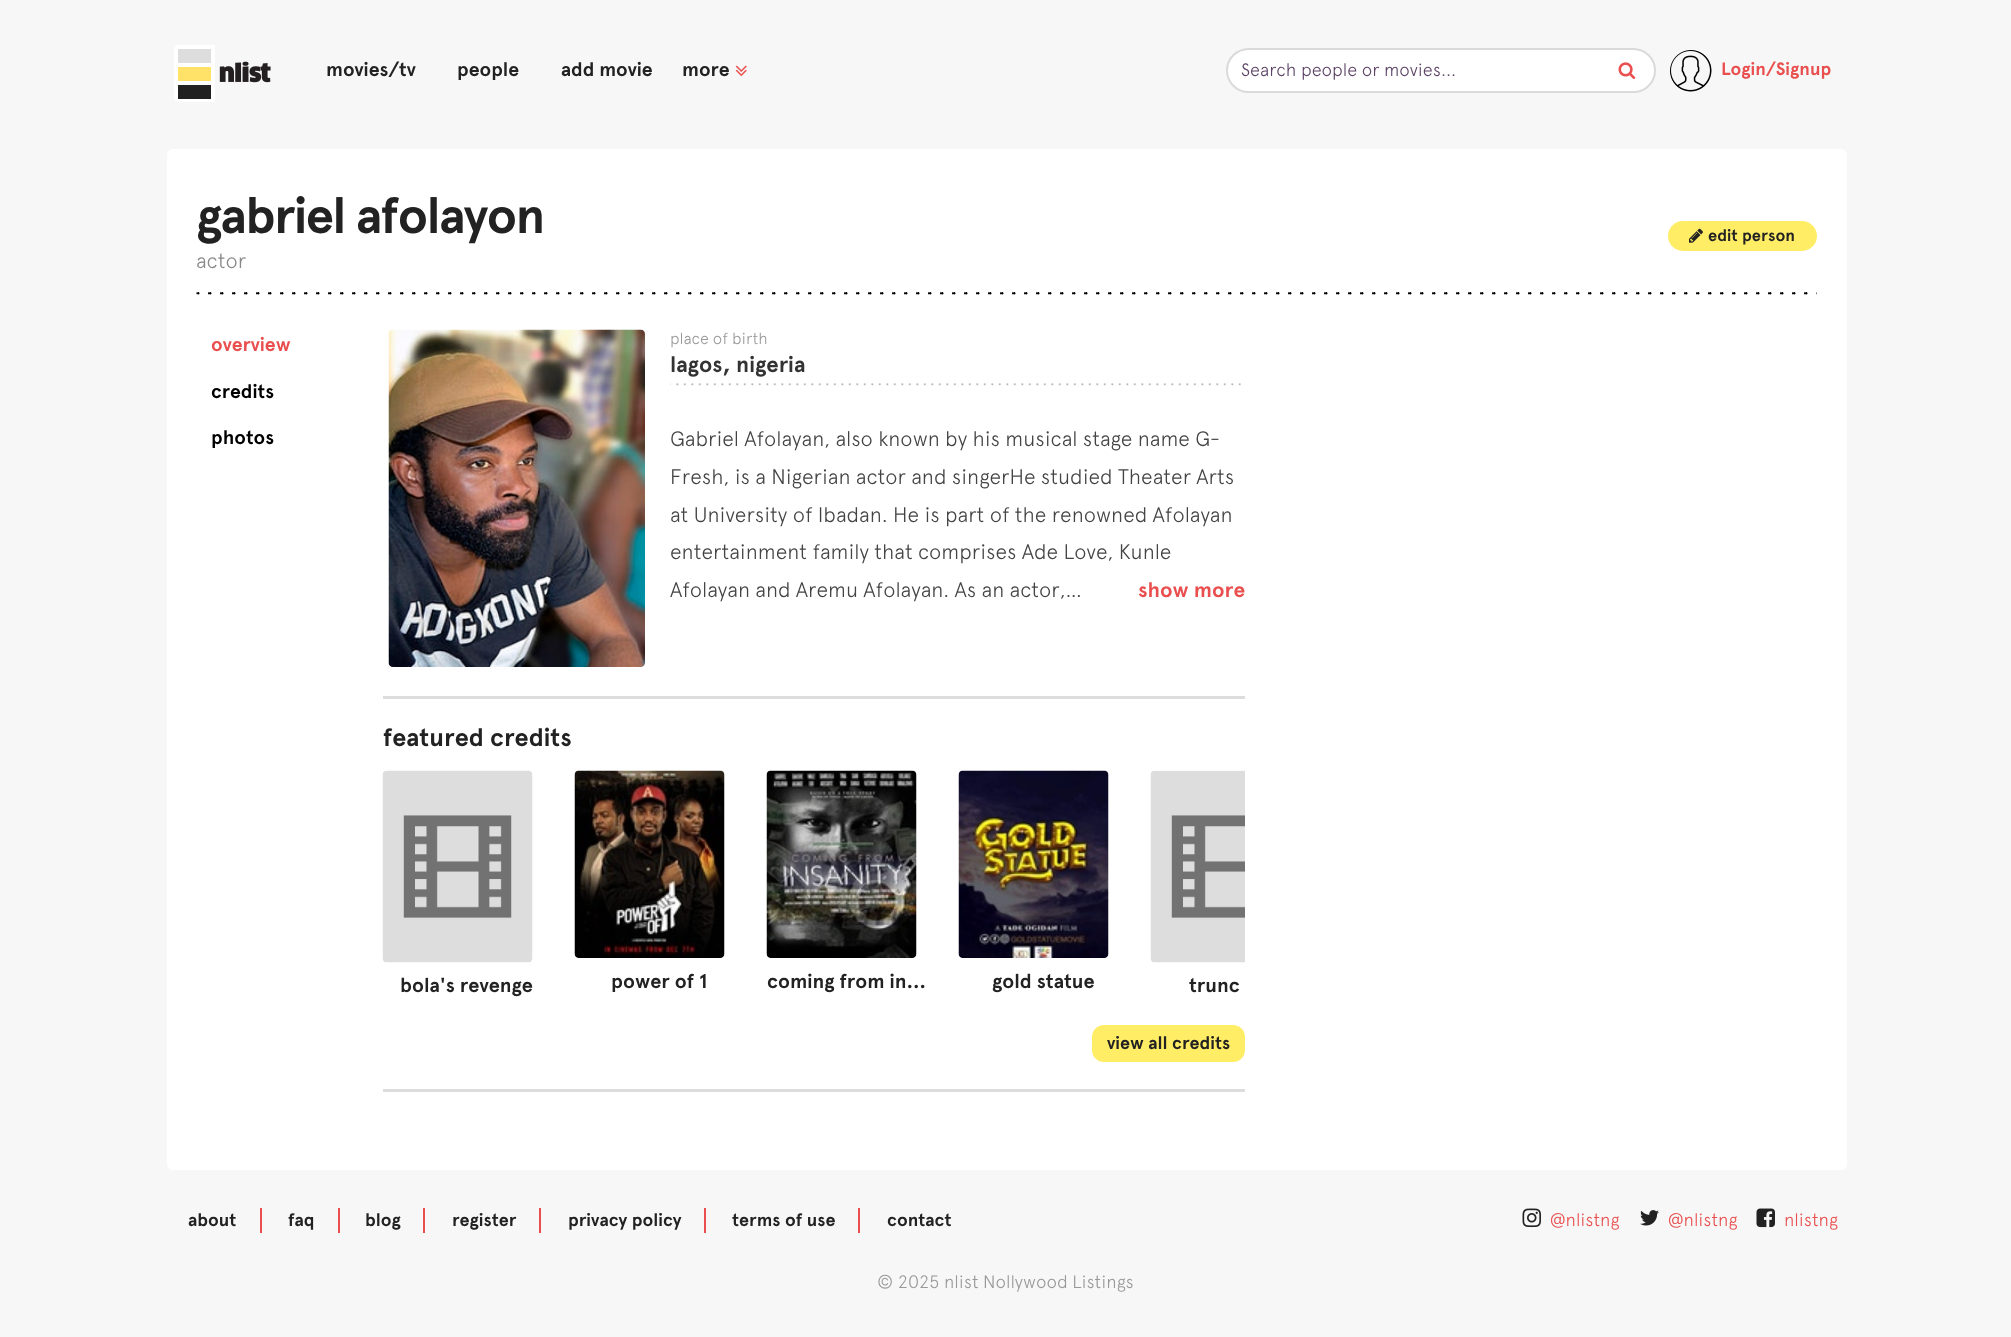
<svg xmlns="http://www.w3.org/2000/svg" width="2011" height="1337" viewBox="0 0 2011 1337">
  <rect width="100%" height="100%" fill="rgb(247,247,247)"/>
  <image x="174" y="45" width="97" height="57" href="pic1.png"/>
  <g font-family="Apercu" font-size="19.5" font-weight="bold" fill="rgb(34,34,34)">
    <text x="326" y="76">movies/tv</text>
    <text x="457" y="76">people</text>
    <text x="561" y="76">add movie</text>
    <text x="682" y="76">more</text>
  </g>
  <image x="735" y="65" width="12" height="12" href="pic2.png"/>
  <rect x="1227" y="49" width="428" height="43" rx="21.5" fill="rgb(255,255,255)" stroke="rgb(218,218,218)" stroke-width="2"/>
  <text x="1241" y="76" font-family="Apercu" font-size="18" font-weight="300" fill="rgb(92,67,101)">Search people or movies...</text>
  <image x="1618" y="62" width="18" height="17" href="pic3.png"/>
  <image x="1670" y="50" width="42" height="42" href="pic4.png"/>
  <text x="1721" y="75" font-family="Apercu" font-size="18" font-weight="bold" fill="rgb(234,79,79)">Login/Signup</text>
  <rect x="167" y="149" width="1680" height="1021" rx="6" fill="rgb(255,255,255)"/>
  <image x="196" y="292" width="1621" height="3" href="pic5.png"/>
  <text x="196" y="233" font-family="Apercu" font-size="50.75" font-weight="bold" letter-spacing="-1.5" fill="rgb(34,34,34)">gabriel afolayon</text>
  <text x="196" y="268" font-family="Apercu" font-size="21" font-weight="300" fill="rgb(136,136,136)">actor</text>
  <rect x="1668" y="221" width="149" height="30" rx="15" fill="rgb(255,237,101)"/>
  <image x="1689" y="228" width="14" height="15" href="pic6.png"/>
  <text x="1708" y="241" font-family="Apercu" font-size="16.5" font-weight="bold" fill="rgb(34,34,34)">edit person</text>
  <text x="211" y="351" font-family="Apercu" font-size="19.5" font-weight="bold" fill="rgb(234,79,79)">overview</text>
  <g font-family="Apercu" font-size="19.5" font-weight="bold" fill="rgb(0,0,0)">
    <text x="211" y="398">credits</text>
    <text x="211" y="444">photos</text>
  </g>
  <image x="388" y="329" width="257" height="338" href="pic7.png"/>
  <image x="670" y="383" width="571" height="3" href="pic8.png"/>
  <text x="670" y="344" font-family="Apercu" font-size="16" font-weight="300" fill="rgb(153,153,153)">place of birth</text>
  <text x="670" y="372" font-family="Apercu" font-size="22.25" font-weight="bold" fill="rgb(51,51,51)">lagos, nigeria</text>
  <g font-family="Apercu" font-size="21" font-weight="300" fill="rgb(68,68,68)">
    <text>
      <tspan x="670" y="446">Gabriel Afolayan, also known by his musical stage name G-</tspan>
      <tspan x="670" y="484">Fresh, is a Nigerian actor and singerHe studied Theater Arts</tspan>
      <tspan x="670" y="522">at University of Ibadan. He is part of the renowned Afolayan</tspan>
      <tspan x="670" y="559">entertainment family that comprises Ade Love, Kunle</tspan>
      <tspan x="670" y="597">Afolayan and Aremu Afolayan. As an actor,…</tspan>
    </text>
  </g>
  <text x="1138" y="597" font-family="Apercu" font-size="21" font-weight="bold" fill="rgb(234,79,79)">show more</text>
  <rect x="383" y="696" width="862" height="3" fill="rgb(221,221,221)"/>
  <text x="383" y="746" font-family="Apercu" font-size="25.25" font-weight="bold" fill="rgb(34,34,34)">featured credits</text>
  <image x="382" y="770" width="151" height="193" href="pic9.png"/>
  <text x="400" y="992" font-family="Apercu" font-size="20" font-weight="bold" fill="rgb(34,34,34)">bola's revenge</text>
  <image x="574" y="770" width="151" height="188" href="pic10.png"/>
  <text x="611" y="988" font-family="Apercu" font-size="20" font-weight="bold" fill="rgb(34,34,34)">power of 1</text>
  <image x="766" y="770" width="151" height="188" href="pic11.png"/>
  <text x="767" y="988" font-family="Apercu" font-size="20" font-weight="bold" fill="rgb(34,34,34)">coming from in…</text>
  <image x="958" y="770" width="151" height="188" href="pic12.png"/>
  <text x="992" y="988" font-family="Apercu" font-size="20" font-weight="bold" fill="rgb(34,34,34)">gold statue</text>
  <image x="1150" y="770" width="95" height="193" href="pic13.png"/>
  <text x="1189" y="992" font-family="Apercu" font-size="20" font-weight="bold" fill="rgb(34,34,34)">trunc</text>
  <rect x="1092" y="1025" width="153" height="37" rx="12" fill="rgb(255,237,101)"/>
  <text x="1107" y="1049" font-family="Apercu" font-size="18" font-weight="bold" fill="rgb(34,34,34)">view all credits</text>
  <rect x="383" y="1089" width="862" height="3" fill="rgb(221,221,221)"/>
  <rect x="260" y="1208" width="2" height="25" fill="rgb(234,79,79)"/>
  <text x="188" y="1226" font-family="Apercu" font-size="18" font-weight="bold" fill="rgb(34,34,34)">about</text>
  <rect x="338" y="1208" width="2" height="25" fill="rgb(234,79,79)"/>
  <text x="288" y="1226" font-family="Apercu" font-size="18" font-weight="bold" fill="rgb(34,34,34)">faq</text>
  <rect x="423" y="1208" width="2" height="25" fill="rgb(234,79,79)"/>
  <text x="365" y="1226" font-family="Apercu" font-size="18" font-weight="bold" fill="rgb(34,34,34)">blog</text>
  <rect x="539" y="1208" width="2" height="25" fill="rgb(234,79,79)"/>
  <text x="452" y="1226" font-family="Apercu" font-size="18" font-weight="bold" fill="rgb(34,34,34)">register</text>
  <rect x="704" y="1208" width="2" height="25" fill="rgb(234,79,79)"/>
  <text x="568" y="1226" font-family="Apercu" font-size="18" font-weight="bold" fill="rgb(34,34,34)">privacy policy</text>
  <rect x="858" y="1208" width="2" height="25" fill="rgb(234,79,79)"/>
  <g font-family="Apercu" font-size="18" font-weight="bold" fill="rgb(34,34,34)">
    <text x="732" y="1226">terms of use</text>
    <text x="887" y="1226">contact</text>
  </g>
  <image x="1522" y="1208" width="19" height="20" href="pic14.png"/>
  <text x="1550" y="1226" font-family="Apercu" font-size="18" font-weight="300" fill="rgb(234,79,79)">@nlistng</text>
  <image x="1640" y="1210" width="19" height="16" href="pic15.png"/>
  <text x="1668" y="1226" font-family="Apercu" font-size="18" font-weight="300" fill="rgb(234,79,79)">@nlistng</text>
  <image x="1756" y="1208" width="19" height="20" href="pic16.png"/>
  <text x="1784" y="1226" font-family="Apercu" font-size="18" font-weight="300" fill="rgb(234,79,79)">nlistng</text>
  <text x="877" y="1288" font-family="Apercu" font-size="18" font-weight="300" fill="rgb(153,153,153)">© 2025 nlist Nollywood Listings</text>
</svg>
